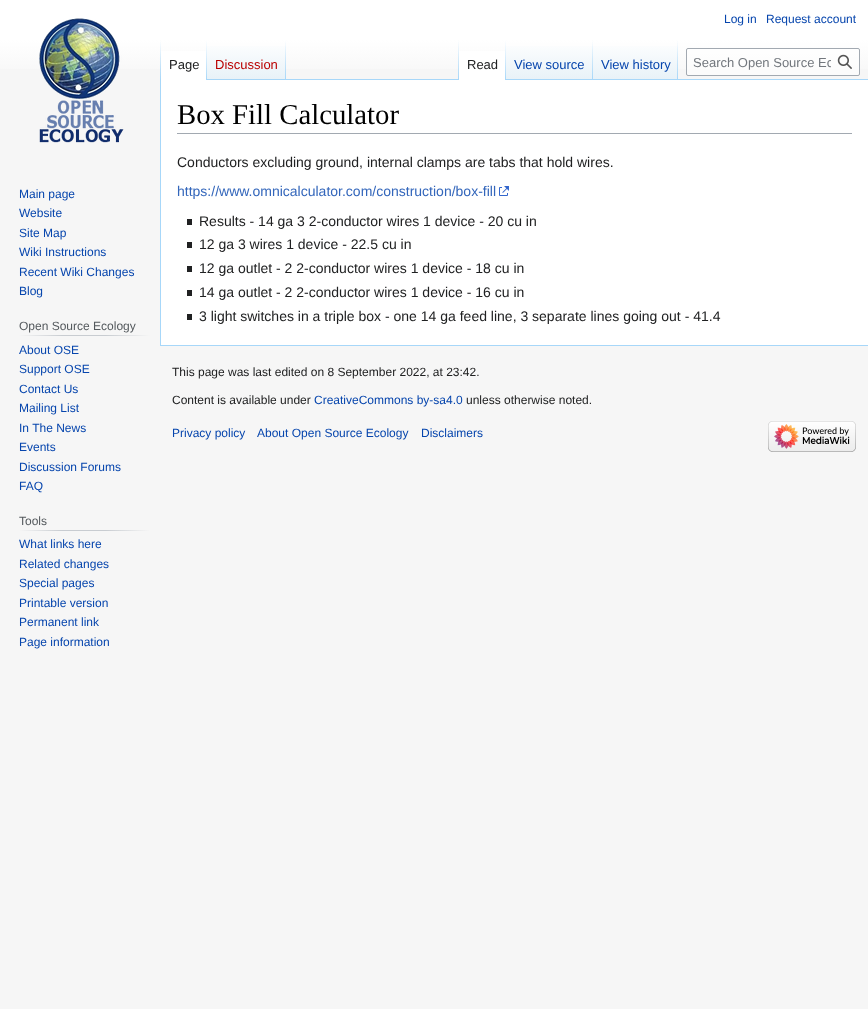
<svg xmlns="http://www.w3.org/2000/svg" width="868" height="1009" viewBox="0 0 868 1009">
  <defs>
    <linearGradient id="g1" gradientUnits="userSpaceOnUse" x1="434" y1="0" x2="434" y2="80"><stop offset="0.5" stop-color="rgb(255,255,255)"/><stop offset="1" stop-color="rgb(246,246,246)"/></linearGradient>
    <linearGradient id="g2" gradientUnits="userSpaceOnUse" x1="161" y1="40" x2="161" y2="80"><stop offset="0" stop-color="rgb(167,215,249)" stop-opacity="0"/><stop offset="1" stop-color="rgb(167,215,249)"/></linearGradient>
    <linearGradient id="g3" gradientUnits="userSpaceOnUse" x1="207" y1="40" x2="207" y2="80"><stop offset="0" stop-color="rgb(255,255,255)"/><stop offset="1" stop-color="rgb(167,215,249)"/></linearGradient>
    <linearGradient id="g4" gradientUnits="userSpaceOnUse" x1="247" y1="80" x2="247" y2="40"><stop offset="0" stop-color="rgb(119,193,246)"/><stop offset="0.03" stop-color="rgb(232,242,248)"/><stop offset="1" stop-color="rgb(255,255,255)"/></linearGradient>
    <linearGradient id="g5" gradientUnits="userSpaceOnUse" x1="286" y1="40" x2="286" y2="80"><stop offset="0" stop-color="rgb(167,215,249)" stop-opacity="0"/><stop offset="1" stop-color="rgb(167,215,249)"/></linearGradient>
    <linearGradient id="g6" gradientUnits="userSpaceOnUse" x1="459" y1="40" x2="459" y2="80"><stop offset="0" stop-color="rgb(167,215,249)" stop-opacity="0"/><stop offset="1" stop-color="rgb(167,215,249)"/></linearGradient>
    <linearGradient id="g7" gradientUnits="userSpaceOnUse" x1="506" y1="40" x2="506" y2="80"><stop offset="0" stop-color="rgb(255,255,255)"/><stop offset="1" stop-color="rgb(167,215,249)"/></linearGradient>
    <linearGradient id="g8" gradientUnits="userSpaceOnUse" x1="550" y1="80" x2="550" y2="40"><stop offset="0" stop-color="rgb(119,193,246)"/><stop offset="0.03" stop-color="rgb(232,242,248)"/><stop offset="1" stop-color="rgb(255,255,255)"/></linearGradient>
    <linearGradient id="g9" gradientUnits="userSpaceOnUse" x1="593" y1="40" x2="593" y2="80"><stop offset="0" stop-color="rgb(167,215,249)" stop-opacity="0"/><stop offset="1" stop-color="rgb(167,215,249)"/></linearGradient>
    <linearGradient id="g10" gradientUnits="userSpaceOnUse" x1="636" y1="80" x2="636" y2="40"><stop offset="0" stop-color="rgb(119,193,246)"/><stop offset="0.03" stop-color="rgb(232,242,248)"/><stop offset="1" stop-color="rgb(255,255,255)"/></linearGradient>
    <linearGradient id="g11" gradientUnits="userSpaceOnUse" x1="678" y1="40" x2="678" y2="80"><stop offset="0" stop-color="rgb(167,215,249)" stop-opacity="0"/><stop offset="1" stop-color="rgb(167,215,249)"/></linearGradient>
    <clipPath id="clip1"><rect x="693" y="55" width="138" height="15"/></clipPath>
    <linearGradient id="g12" gradientUnits="userSpaceOnUse" x1="19" y1="336" x2="150" y2="336"><stop offset="0" stop-color="rgb(246,246,246)"/><stop offset="0.33" stop-color="rgb(200,204,209)"/><stop offset="0.66" stop-color="rgb(200,204,209)"/><stop offset="1" stop-color="rgb(246,246,246)"/></linearGradient>
    <linearGradient id="g13" gradientUnits="userSpaceOnUse" x1="19" y1="531" x2="150" y2="531"><stop offset="0" stop-color="rgb(246,246,246)"/><stop offset="0.33" stop-color="rgb(200,204,209)"/><stop offset="0.66" stop-color="rgb(200,204,209)"/><stop offset="1" stop-color="rgb(246,246,246)"/></linearGradient>
  </defs>
  <rect width="100%" height="100%" fill="rgb(246,246,246)"/>
  <rect x="0" y="0" width="868" height="69" fill="url(#g1)"/>
  <g font-family="Liberation Sans" font-size="12" fill="rgb(6,69,173)">
    <text x="724" y="23">Log in</text>
    <text x="766" y="23">Request account</text>
  </g>
  <rect x="160" y="345" width="708" height="1" fill="rgb(167,215,249)"/>
  <rect x="160" y="79" width="1" height="267" fill="rgb(167,215,249)"/>
  <rect x="160" y="40" width="1" height="40" fill="url(#g2)"/>
  <rect x="161" y="51" width="45" height="29" fill="rgb(255,255,255)"/>
  <rect x="206" y="40" width="1" height="40" fill="url(#g3)"/>
  <text x="169" y="69" font-family="Liberation Sans" font-size="13" fill="rgb(32,33,34)">Page</text>
  <rect x="207" y="46" width="79" height="34" fill="url(#g4)"/>
  <rect x="285" y="40" width="1" height="40" fill="url(#g5)"/>
  <text x="215" y="69" font-family="Liberation Sans" font-size="13" fill="rgb(186,0,0)">Discussion</text>
  <rect x="286" y="79" width="582" height="1" fill="rgb(167,215,249)"/>
  <rect x="458" y="40" width="1" height="40" fill="url(#g6)"/>
  <rect x="459" y="51" width="46" height="29" fill="rgb(255,255,255)"/>
  <rect x="505" y="40" width="1" height="40" fill="url(#g7)"/>
  <text x="467" y="69" font-family="Liberation Sans" font-size="13" fill="rgb(32,33,34)">Read</text>
  <rect x="506" y="46" width="87" height="33" fill="url(#g8)"/>
  <rect x="592" y="40" width="1" height="40" fill="url(#g9)"/>
  <text x="514" y="69" font-family="Liberation Sans" font-size="13" fill="rgb(6,69,173)">View source</text>
  <rect x="593" y="46" width="85" height="33" fill="url(#g10)"/>
  <rect x="677" y="40" width="1" height="40" fill="url(#g11)"/>
  <text x="601" y="69" font-family="Liberation Sans" font-size="13" fill="rgb(6,69,173)">View history</text>
  <rect x="686.5" y="48.5" width="173" height="27" rx="1.5" fill="rgba(255,255,255,0.5)" stroke="rgb(162,169,177)"/>
  <g clip-path="url(#clip1)">
    <text x="693" y="67" font-family="Liberation Sans" font-size="13" fill="rgb(114,119,125)">Search Open Source Ec</text>
  </g>
  <image x="837" y="54" width="15" height="15" href="pic1.png"/>
  <image x="39" y="18" width="85" height="125" href="pic2.png"/>
  <g font-family="Liberation Sans" font-size="12" fill="rgb(6,69,173)">
    <text>
      <tspan x="19" y="198">Main page</tspan>
      <tspan x="19" y="217">Website</tspan>
      <tspan x="19" y="237">Site Map</tspan>
      <tspan x="19" y="256">Wiki Instructions</tspan>
      <tspan x="19" y="276">Recent Wiki Changes</tspan>
      <tspan x="19" y="295">Blog</tspan>
    </text>
  </g>
  <rect x="19" y="335" width="131" height="1" fill="url(#g12)"/>
  <text x="19" y="330" font-family="Liberation Sans" font-size="12" fill="rgb(84,89,93)">Open Source Ecology</text>
  <g font-family="Liberation Sans" font-size="12" fill="rgb(6,69,173)">
    <text>
      <tspan x="19" y="354">About OSE</tspan>
      <tspan x="19" y="373">Support OSE</tspan>
      <tspan x="19" y="393">Contact Us</tspan>
      <tspan x="19" y="412">Mailing List</tspan>
      <tspan x="19" y="432">In The News</tspan>
      <tspan x="19" y="451">Events</tspan>
      <tspan x="19" y="471">Discussion Forums</tspan>
      <tspan x="19" y="490">FAQ</tspan>
    </text>
  </g>
  <rect x="19" y="530" width="131" height="1" fill="url(#g13)"/>
  <text x="19" y="525" font-family="Liberation Sans" font-size="12" fill="rgb(84,89,93)">Tools</text>
  <g font-family="Liberation Sans" font-size="12" fill="rgb(6,69,173)">
    <text>
      <tspan x="19" y="548">What links here</tspan>
      <tspan x="19" y="568">Related changes</tspan>
      <tspan x="19" y="587">Special pages</tspan>
      <tspan x="19" y="607">Printable version</tspan>
      <tspan x="19" y="626">Permanent link</tspan>
      <tspan x="19" y="646">Page information</tspan>
    </text>
  </g>
  <rect x="161" y="80" width="707" height="265" fill="rgb(255,255,255)"/>
  <rect x="177" y="133" width="675" height="1" fill="rgb(162,169,177)"/>
  <text x="177" y="124" font-family="Liberation Serif" font-size="28.75" fill="rgb(0,0,0)">Box Fill Calculator</text>
  <text x="177" y="167" font-family="Liberation Sans" font-size="14" fill="rgb(32,33,34)">Conductors excluding ground, internal clamps are tabs that hold wires.</text>
  <text x="177" y="196" font-family="Liberation Sans" font-size="14" fill="rgb(51,102,187)">https://www.omnicalculator.com/construction/box-fill</text>
  <image x="499" y="186" width="10" height="10" href="pic3.png"/>
  <rect x="187" y="219" width="5" height="6" fill="rgb(32,33,34)"/>
  <text x="199" y="226" font-family="Liberation Sans" font-size="14" fill="rgb(32,33,34)">Results - 14 ga 3 2-conductor wires 1 device - 20 cu in</text>
  <rect x="187" y="242" width="5" height="6" fill="rgb(32,33,34)"/>
  <text x="199" y="249" font-family="Liberation Sans" font-size="14" fill="rgb(32,33,34)">12 ga 3 wires 1 device - 22.5 cu in</text>
  <rect x="187" y="266" width="5" height="6" fill="rgb(32,33,34)"/>
  <text x="199" y="273" font-family="Liberation Sans" font-size="14" fill="rgb(32,33,34)">12 ga outlet - 2 2-conductor wires 1 device - 18 cu in</text>
  <rect x="187" y="290" width="5" height="6" fill="rgb(32,33,34)"/>
  <text x="199" y="297" font-family="Liberation Sans" font-size="14" fill="rgb(32,33,34)">14 ga outlet - 2 2-conductor wires 1 device - 16 cu in</text>
  <rect x="187" y="314" width="5" height="6" fill="rgb(32,33,34)"/>
  <text x="199" y="321" font-family="Liberation Sans" font-size="14" fill="rgb(32,33,34)">3 light switches in a triple box - one 14 ga feed line, 3 separate lines going out - 41.4</text>
  <g font-family="Liberation Sans" font-size="12" fill="rgb(32,33,34)">
    <text x="172" y="376">This page was last edited on 8 September 2022, at 23:42.</text>
    <text x="172" y="404">Content is available under</text>
  </g>
  <text x="314" y="404" font-family="Liberation Sans" font-size="12" fill="rgb(6,69,173)">CreativeCommons by-sa4.0</text>
  <text x="466" y="404" font-family="Liberation Sans" font-size="12" fill="rgb(32,33,34)">unless otherwise noted.</text>
  <g font-family="Liberation Sans" font-size="12" fill="rgb(6,69,173)">
    <text x="172" y="437">Privacy policy</text>
    <text x="257" y="437">About Open Source Ecology</text>
    <text x="421" y="437">Disclaimers</text>
  </g>
  <image x="768" y="421" width="88" height="31" href="pic4.png"/>
</svg>
